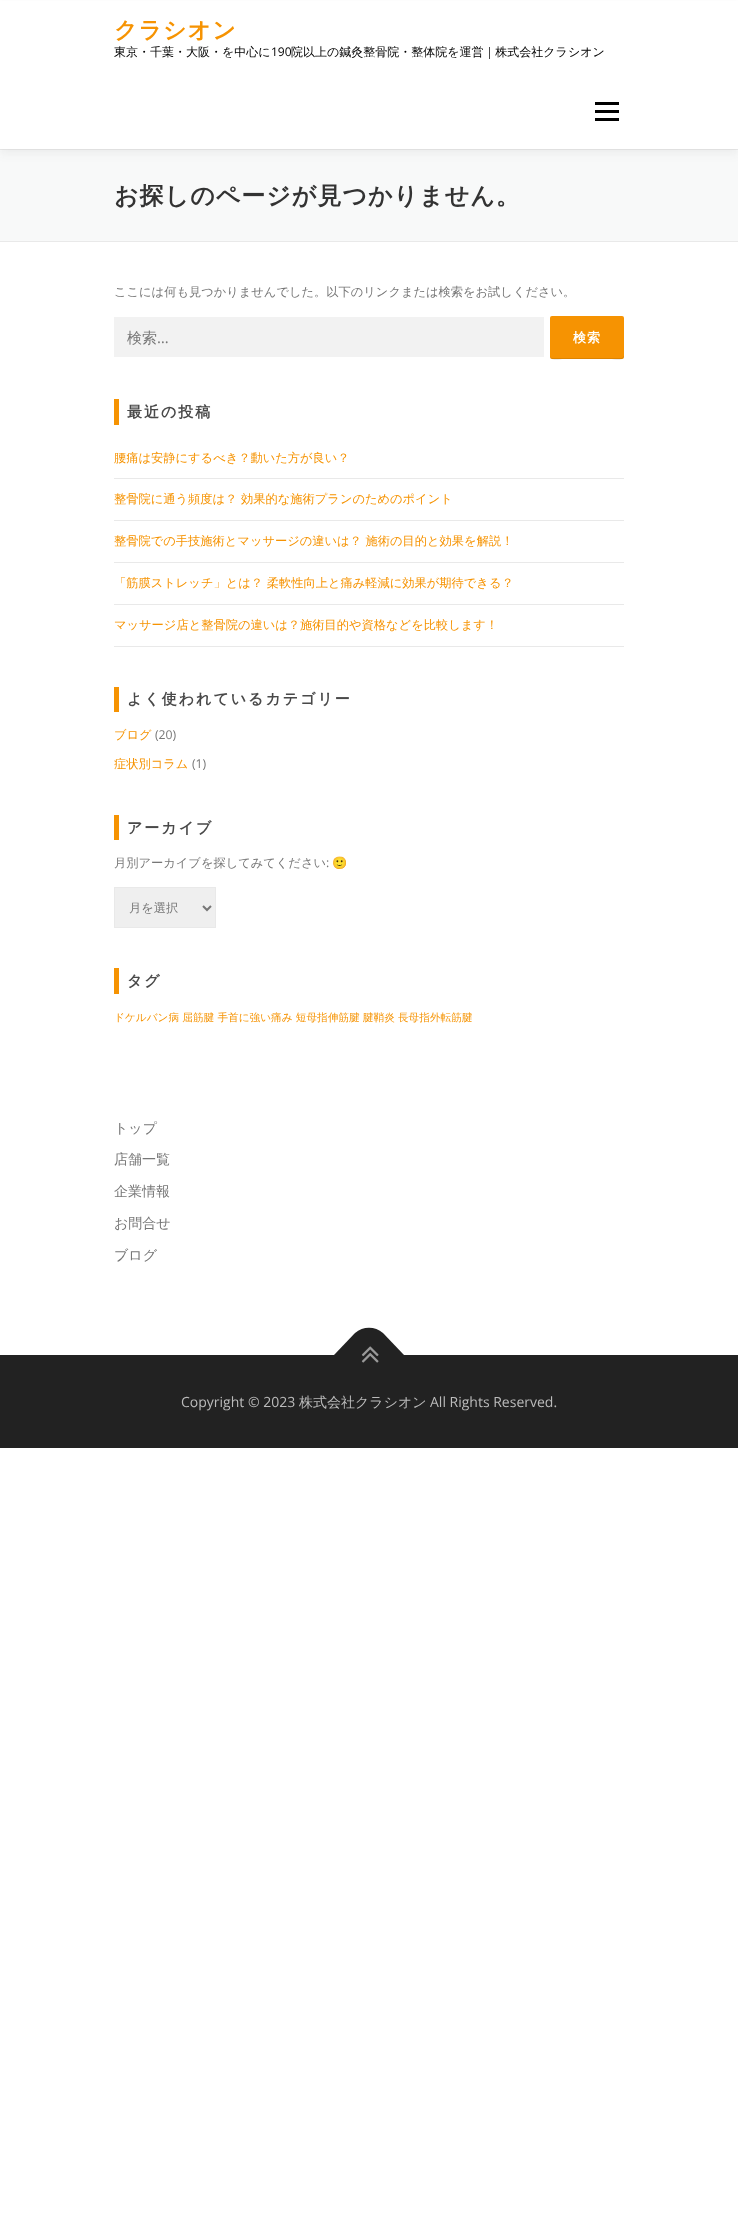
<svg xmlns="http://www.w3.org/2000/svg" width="738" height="2239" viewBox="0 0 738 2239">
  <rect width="100%" height="100%" fill="rgb(255,255,255)"/>
  <rect x="0" y="150" width="738" height="91" fill="rgb(248,249,249)"/>
  <rect x="0" y="149" width="738" height="1" fill="rgb(233,233,233)"/>
  <rect x="0" y="5" width="738" height="149" fill="rgba(50,50,50,0.06)" filter="blur(5px)"/>
  <rect x="0" y="1" width="738" height="148" fill="rgb(255,255,255)"/>
  <text x="114" y="38" font-family="WenQuanYi Zen Hei" font-size="23" font-weight="bold" letter-spacing="1" fill="rgb(246,147,2)">クラシオン</text>
  <text x="114" y="56" font-family="WenQuanYi Zen Hei" font-size="12" font-weight="500" fill="rgb(0,0,0)">東京・千葉・大阪・を中心に</text>
  <text x="271" y="56" font-family="Open Sans" font-size="12" fill="rgb(0,0,0)">190</text>
  <text x="291" y="56" font-family="WenQuanYi Zen Hei" font-size="12" font-weight="500" fill="rgb(0,0,0)">院以上の鍼灸整骨院・整体院を運営｜株式会社クラシオン</text>
  <rect x="595" y="110" width="24" height="3" fill="rgb(0,0,0)"/>
  <rect x="595" y="102" width="24" height="3" fill="rgb(0,0,0)"/>
  <rect x="595" y="118" width="24" height="3" fill="rgb(0,0,0)"/>
  <rect x="0" y="241" width="738" height="1" fill="rgb(233,233,233)"/>
  <text x="114" y="204" font-family="WenQuanYi Zen Hei" font-size="24" font-weight="bold" letter-spacing="1" fill="rgb(51,51,51)">お探しのページが見つかりません。</text>
  <text x="114" y="296" font-family="WenQuanYi Zen Hei" font-size="12.25" font-weight="500" fill="rgb(119,119,119)">ここには何も見つかりませんでした。以下のリンクまたは検索をお試しください。</text>
  <rect x="114" y="317" width="430" height="40" fill="rgb(242,242,242)"/>
  <text x="127" y="343" font-family="WenQuanYi Zen Hei" font-size="15" font-weight="500" fill="rgb(119,119,119)">検索</text>
  <text x="157" y="343" font-family="Open Sans" font-size="15" fill="rgb(119,119,119)">…</text>
  <rect x="550" y="316" width="74" height="43" rx="2" fill="rgb(246,147,2)"/>
  <path d="M550 356C550 362 560 359 564 359H610C614 359 624 362 624 356L623 357L622 358H552C551 358 550 357 550 356Z" fill="rgba(0,0,0,0.1)"/>
  <text x="573" y="342" font-family="WenQuanYi Zen Hei" font-size="13" font-weight="bold" letter-spacing="1" fill="rgb(255,255,255)">検索</text>
  <rect x="114" y="399" width="5" height="26" fill="rgb(246,147,2)"/>
  <text x="127" y="417" font-family="WenQuanYi Zen Hei" font-size="15" font-weight="bold" letter-spacing="2" fill="rgb(73,73,73)">最近の投稿</text>
  <rect x="114" y="478" width="510" height="1" fill="rgb(233,233,233)"/>
  <text x="114" y="462" font-family="WenQuanYi Zen Hei" font-size="12.25" font-weight="500" fill="rgb(246,147,2)">腰痛は安静にするべき？動いた方が良い？</text>
  <rect x="114" y="520" width="510" height="1" fill="rgb(233,233,233)"/>
  <text x="114" y="503" font-family="WenQuanYi Zen Hei" font-size="12.25" font-weight="500" fill="rgb(246,147,2)">整骨院に通う頻度は？ 効果的な施術プランのためのポイント</text>
  <rect x="114" y="562" width="510" height="1" fill="rgb(233,233,233)"/>
  <text x="114" y="545" font-family="WenQuanYi Zen Hei" font-size="12.25" font-weight="500" fill="rgb(246,147,2)">整骨院での手技施術とマッサージの違いは？ 施術の目的と効果を解説！</text>
  <rect x="114" y="604" width="510" height="1" fill="rgb(233,233,233)"/>
  <text x="114" y="587" font-family="WenQuanYi Zen Hei" font-size="12.25" font-weight="500" fill="rgb(246,147,2)">「筋膜ストレッチ」とは？ 柔軟性向上と痛み軽減に効果が期待できる？</text>
  <rect x="114" y="646" width="510" height="1" fill="rgb(233,233,233)"/>
  <text x="114" y="629" font-family="WenQuanYi Zen Hei" font-size="12.25" font-weight="500" fill="rgb(246,147,2)">マッサージ店と整骨院の違いは？施術目的や資格などを比較します！</text>
  <rect x="114" y="687" width="5" height="25" fill="rgb(246,147,2)"/>
  <text x="127" y="704" font-family="WenQuanYi Zen Hei" font-size="15" font-weight="bold" letter-spacing="2" fill="rgb(73,73,73)">よく使われているカテゴリー</text>
  <text x="114" y="739" font-family="WenQuanYi Zen Hei" font-size="12.25" font-weight="500" fill="rgb(246,147,2)">ブログ</text>
  <text x="155" y="739" font-family="Open Sans" font-size="12.25" fill="rgb(119,119,119)">(20)</text>
  <text x="114" y="768" font-family="WenQuanYi Zen Hei" font-size="12.25" font-weight="500" fill="rgb(246,147,2)">症状別コラム</text>
  <text x="192" y="768" font-family="Open Sans" font-size="12.25" fill="rgb(119,119,119)">(1)</text>
  <rect x="114" y="815" width="5" height="25" fill="rgb(246,147,2)"/>
  <text x="127" y="833" font-family="WenQuanYi Zen Hei" font-size="15" font-weight="bold" letter-spacing="2" fill="rgb(73,73,73)">アーカイブ</text>
  <text x="114" y="867" font-family="WenQuanYi Zen Hei" font-size="12.25" font-weight="500" fill="rgb(119,119,119)">月別アーカイブを探してみてください</text>
  <text x="326" y="867" font-family="Open Sans" font-size="12.25" fill="rgb(119,119,119)">:</text>
  <text x="332" y="867" font-family="Noto Color Emoji" font-size="12.25" fill="rgb(119,119,119)">🙂</text>
  <rect x="114.5" y="887.5" width="101" height="40" fill="rgb(239,239,239)" stroke="rgb(233,233,233)"/>
  <path d="M203 906L207 910L211 906" fill="none" stroke="rgb(119,119,119)" stroke-width="2"/>
  <text x="129" y="912" font-family="WenQuanYi Zen Hei" font-size="12.25" font-weight="500" fill="rgb(119,119,119)">月を選択</text>
  <rect x="114" y="968" width="5" height="26" fill="rgb(246,147,2)"/>
  <text x="127" y="986" font-family="WenQuanYi Zen Hei" font-size="15" font-weight="bold" letter-spacing="2" fill="rgb(73,73,73)">タグ</text>
  <text x="114" y="1021" font-family="WenQuanYi Zen Hei" font-size="10.65" font-weight="500" fill="rgb(246,147,2)">ドケルバン病 屈筋腱 手首に強い痛み 短母指伸筋腱 腱鞘炎 長母指外転筋腱</text>
  <g font-family="WenQuanYi Zen Hei" font-size="14" font-weight="500" fill="rgb(119,119,119)">
    <text x="114" y="1133">トップ</text>
    <text x="114" y="1164">店舗一覧</text>
    <text x="114" y="1196">企業情報</text>
    <text x="114" y="1228">お問合せ</text>
    <text x="114" y="1260">ブログ</text>
  </g>
  <rect x="0" y="1355" width="738" height="93" fill="rgb(34,34,34)"/>
  <path d="M334 1355L355 1333C363 1326 375 1326 383 1333L404 1355L369 1390Z" fill="rgb(34,34,34)"/>
  <image x="361" y="1346" width="18" height="17" href="pic1.png"/>
  <text x="181" y="1407" font-family="Open Sans" font-size="14" fill="rgb(187,187,187)">Copyright © 2023</text>
  <text x="299" y="1407" font-family="WenQuanYi Zen Hei" font-size="14" font-weight="500" fill="rgb(187,187,187)">株式会社クラシオン</text>
  <text x="430" y="1407" font-family="Open Sans" font-size="14" fill="rgb(187,187,187)">All Rights Reserved.</text>
</svg>
